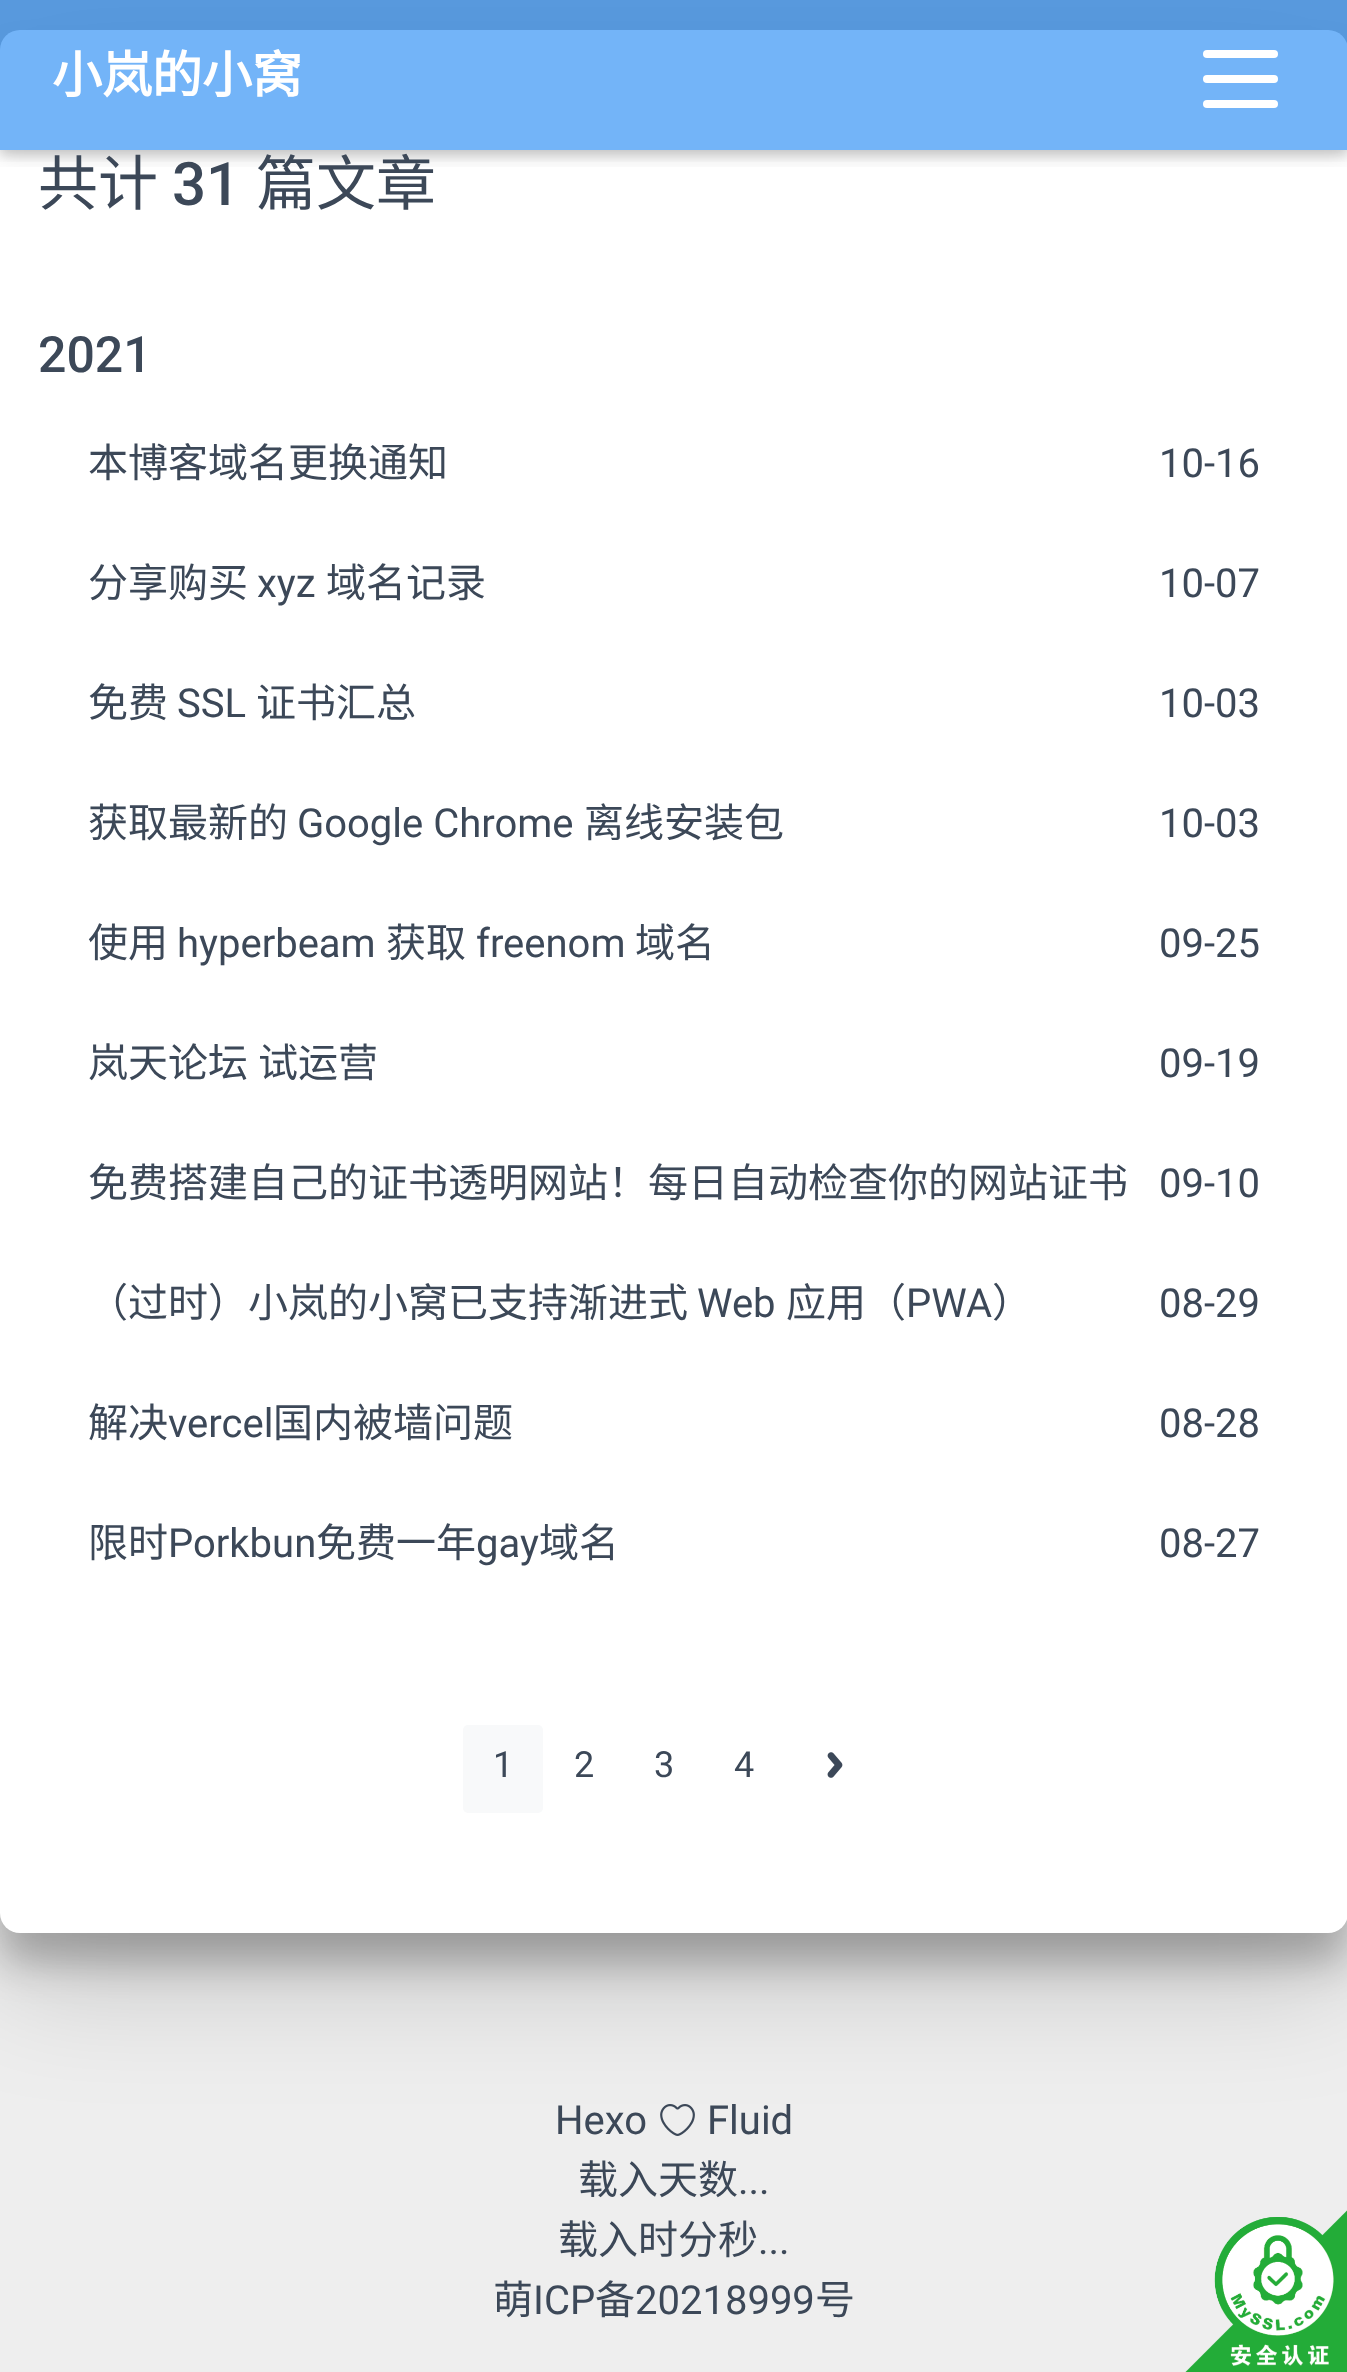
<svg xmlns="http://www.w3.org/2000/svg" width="1347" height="2372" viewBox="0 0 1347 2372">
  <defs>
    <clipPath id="clip1"><rect x="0" y="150" width="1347" height="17"/></clipPath>
    <clipPath id="clip2"><rect x="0" y="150" width="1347" height="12"/></clipPath>
  </defs>
  <rect width="100%" height="100%" fill="rgb(238,238,238)"/>
  <rect x="0" y="0" width="1347" height="50" fill="rgb(167,167,167)"/>
  <image x="660" y="2104" width="35" height="32" href="pic3.png"/>
  <rect x="0" y="73" width="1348" height="1902" rx="20" fill="rgba(0,0,0,0.19)" filter="blur(62.5px)"/>
  <rect x="0" y="60" width="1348" height="1903" rx="20" fill="rgba(0,0,0,0.24)" filter="blur(19px)"/>
  <rect x="0" y="30" width="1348" height="1903" rx="20" fill="rgb(255,255,255)"/>
  <g clip-path="url(#clip1)">
    <rect x="0" y="5" width="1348" height="150" fill="rgba(0,0,0,0.12)" filter="blur(12.5px)"/>
  </g>
  <g clip-path="url(#clip2)">
    <rect x="0" y="5" width="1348" height="150" fill="rgba(0,0,0,0.16)" filter="blur(6px)"/>
  </g>
  <rect x="0" y="0" width="1347" height="150" fill="rgba(56,148,245,0.7)"/>
  <text x="52" y="93" font-family="Noto Sans CJK SC" font-size="50" font-weight="bold" fill="rgb(255,255,255)">小岚的小窝</text>
  <rect x="1203" y="50" width="75" height="8" rx="4" fill="rgb(255,255,255)"/>
  <rect x="1203" y="75" width="75" height="8" rx="4" fill="rgb(255,255,255)"/>
  <rect x="1203" y="100" width="75" height="8" rx="4" fill="rgb(255,255,255)"/>
  <text x="38" y="205" font-family="Noto Sans CJK SC" font-size="60" fill="rgb(60,72,88)">共计</text>
  <text x="172" y="205" font-family="Roboto" font-size="60" font-weight="500" fill="rgb(60,72,88)">31</text>
  <text x="256" y="205" font-family="Noto Sans CJK SC" font-size="60" fill="rgb(60,72,88)">篇文章</text>
  <text x="38" y="372" font-family="Roboto" font-size="50" font-weight="500" fill="rgb(60,72,88)">2021</text>
  <text x="88" y="477" font-family="Noto Sans CJK SC" font-size="40" fill="rgb(60,72,88)">本博客域名更换通知</text>
  <text x="1159" y="477" font-family="Roboto" font-size="40" fill="rgb(60,72,88)">10-16</text>
  <text x="88" y="597" font-family="Noto Sans CJK SC" font-size="40" fill="rgb(60,72,88)">分享购买</text>
  <text x="257" y="597" font-family="Roboto" font-size="40" fill="rgb(60,72,88)">xyz</text>
  <text x="326" y="597" font-family="Noto Sans CJK SC" font-size="40" fill="rgb(60,72,88)">域名记录</text>
  <text x="1159" y="597" font-family="Roboto" font-size="40" fill="rgb(60,72,88)">10-07</text>
  <text x="88" y="717" font-family="Noto Sans CJK SC" font-size="40" fill="rgb(60,72,88)">免费</text>
  <text x="177" y="717" font-family="Roboto" font-size="40" fill="rgb(60,72,88)">SSL</text>
  <text x="256" y="717" font-family="Noto Sans CJK SC" font-size="40" fill="rgb(60,72,88)">证书汇总</text>
  <text x="1159" y="717" font-family="Roboto" font-size="40" fill="rgb(60,72,88)">10-03</text>
  <text x="88" y="837" font-family="Noto Sans CJK SC" font-size="40" fill="rgb(60,72,88)">获取最新的</text>
  <text x="297" y="837" font-family="Roboto" font-size="40" fill="rgb(60,72,88)">Google Chrome</text>
  <text x="584" y="837" font-family="Noto Sans CJK SC" font-size="40" fill="rgb(60,72,88)">离线安装包</text>
  <text x="1159" y="837" font-family="Roboto" font-size="40" fill="rgb(60,72,88)">10-03</text>
  <text x="88" y="957" font-family="Noto Sans CJK SC" font-size="40" fill="rgb(60,72,88)">使用</text>
  <text x="177" y="957" font-family="Roboto" font-size="40" fill="rgb(60,72,88)">hyperbeam</text>
  <text x="386" y="957" font-family="Noto Sans CJK SC" font-size="40" fill="rgb(60,72,88)">获取</text>
  <text x="476" y="957" font-family="Roboto" font-size="40" fill="rgb(60,72,88)">freenom</text>
  <text x="635" y="957" font-family="Noto Sans CJK SC" font-size="40" fill="rgb(60,72,88)">域名</text>
  <text x="1159" y="957" font-family="Roboto" font-size="40" fill="rgb(60,72,88)">09-25</text>
  <text x="88" y="1077" word-spacing="1" font-family="Noto Sans CJK SC" font-size="40" fill="rgb(60,72,88)">岚天论坛 试运营</text>
  <text x="1159" y="1077" font-family="Roboto" font-size="40" fill="rgb(60,72,88)">09-19</text>
  <text x="88" y="1197" font-family="Noto Sans CJK SC" font-size="40" fill="rgb(60,72,88)">免费搭建自己的证书透明网站！每日自动检查你的网站证书</text>
  <text x="1159" y="1197" font-family="Roboto" font-size="40" fill="rgb(60,72,88)">09-10</text>
  <text x="88" y="1317" font-family="Noto Sans CJK SC" font-size="40" fill="rgb(60,72,88)">（过时）小岚的小窝已支持渐进式</text>
  <text x="697" y="1317" font-family="Roboto" font-size="40" fill="rgb(60,72,88)">Web</text>
  <text x="786" y="1317" font-family="Noto Sans CJK SC" font-size="40" fill="rgb(60,72,88)">应用（</text>
  <text x="906" y="1317" font-family="Roboto" font-size="40" fill="rgb(60,72,88)">PWA</text>
  <text x="992" y="1317" font-family="Noto Sans CJK SC" font-size="40" fill="rgb(60,72,88)">）</text>
  <text x="1159" y="1317" font-family="Roboto" font-size="40" fill="rgb(60,72,88)">08-29</text>
  <text x="88" y="1437" font-family="Noto Sans CJK SC" font-size="40" fill="rgb(60,72,88)">解决</text>
  <text x="168" y="1437" font-family="Roboto" font-size="40" fill="rgb(60,72,88)">vercel</text>
  <text x="273" y="1437" font-family="Noto Sans CJK SC" font-size="40" fill="rgb(60,72,88)">国内被墙问题</text>
  <text x="1159" y="1437" font-family="Roboto" font-size="40" fill="rgb(60,72,88)">08-28</text>
  <text x="88" y="1557" font-family="Noto Sans CJK SC" font-size="40" fill="rgb(60,72,88)">限时</text>
  <text x="168" y="1557" font-family="Roboto" font-size="40" fill="rgb(60,72,88)">Porkbun</text>
  <text x="316" y="1557" font-family="Noto Sans CJK SC" font-size="40" fill="rgb(60,72,88)">免费一年</text>
  <text x="476" y="1557" font-family="Roboto" font-size="40" fill="rgb(60,72,88)">gay</text>
  <text x="539" y="1557" font-family="Noto Sans CJK SC" font-size="40" fill="rgb(60,72,88)">域名</text>
  <text x="1159" y="1557" font-family="Roboto" font-size="40" fill="rgb(60,72,88)">08-27</text>
  <rect x="463" y="1725" width="80" height="88" rx="5" fill="rgb(248,249,250)"/>
  <g font-family="Roboto" font-size="36" fill="rgb(60,72,88)">
    <text x="493" y="1777">1</text>
    <text x="574" y="1777">2</text>
    <text x="654" y="1777">3</text>
    <text x="734" y="1777">4</text>
  </g>
  <image x="827" y="1752" width="16" height="26" href="pic1.png"/>
  <image x="1185" y="2210" width="162" height="162" href="pic2.png"/>
  <g font-family="Roboto" font-size="40" fill="rgb(60,72,88)">
    <text x="555" y="2134">Hexo</text>
    <text x="707" y="2134">Fluid</text>
  </g>
  <text x="578" y="2194" font-family="Noto Sans CJK SC" font-size="40" fill="rgb(60,72,88)">载入天数</text>
  <text x="738" y="2194" font-family="Roboto" font-size="40" fill="rgb(60,72,88)">...</text>
  <text x="558" y="2254" font-family="Noto Sans CJK SC" font-size="40" fill="rgb(60,72,88)">载入时分秒</text>
  <text x="758" y="2254" font-family="Roboto" font-size="40" fill="rgb(60,72,88)">...</text>
  <text x="493" y="2314" font-family="Noto Sans CJK SC" font-size="40" fill="rgb(60,72,88)">萌</text>
  <text x="533" y="2314" font-family="Roboto" font-size="40" fill="rgb(60,72,88)">ICP</text>
  <text x="595" y="2314" font-family="Noto Sans CJK SC" font-size="40" fill="rgb(60,72,88)">备</text>
  <text x="635" y="2314" font-family="Roboto" font-size="40" fill="rgb(60,72,88)">20218999</text>
  <text x="815" y="2314" font-family="Noto Sans CJK SC" font-size="40" fill="rgb(60,72,88)">号</text>
</svg>
